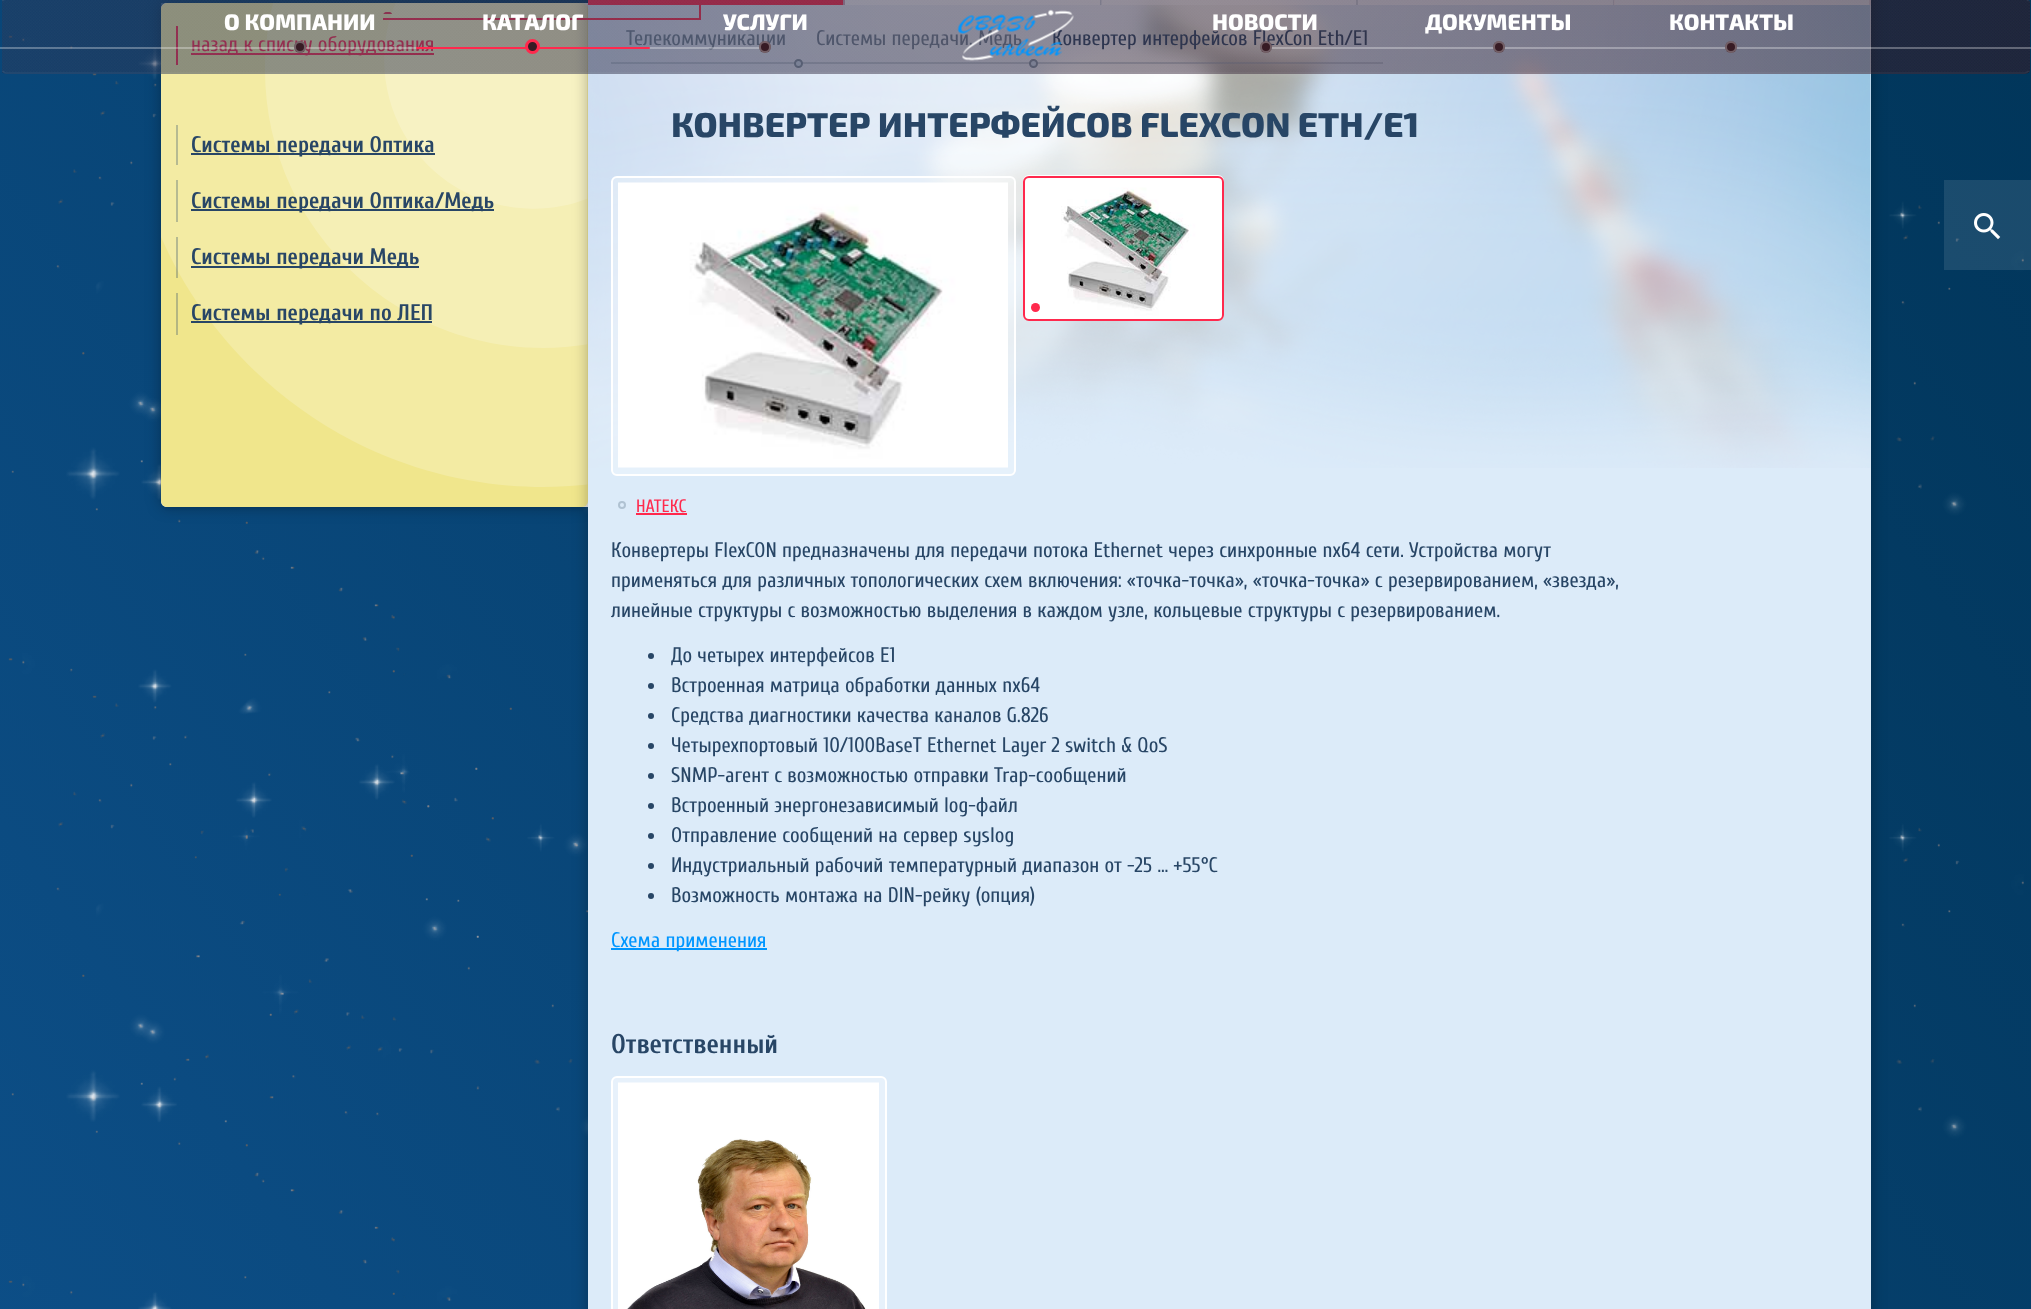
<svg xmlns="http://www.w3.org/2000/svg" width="2031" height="1309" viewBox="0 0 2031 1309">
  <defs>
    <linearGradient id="g1" gradientUnits="userSpaceOnUse" x1="-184" y1="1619" x2="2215" y2="-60"><stop offset="0" stop-color="rgb(14,81,140)"/><stop offset="1" stop-color="rgb(0,52,87)"/></linearGradient>
    <linearGradient id="g2" gradientUnits="userSpaceOnUse" x1="1229" y1="-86" x2="1229" y2="4.5"><stop offset="0" stop-color="rgb(255,255,255)" stop-opacity="0"/><stop offset="1" stop-color="rgb(255,255,255)" stop-opacity="0.5"/></linearGradient>
    <linearGradient id="g3" gradientUnits="userSpaceOnUse" x1="1742" y1="-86" x2="1742" y2="4.5"><stop offset="0" stop-color="rgb(255,255,255)" stop-opacity="0"/><stop offset="1" stop-color="rgb(255,255,255)" stop-opacity="0.5"/></linearGradient>
    <clipPath id="clip1"><rect x="0" y="-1" width="2031" height="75" rx="6"/></clipPath>
    <linearGradient id="g4" gradientUnits="userSpaceOnUse" x1="1.5" y1="36" x2="2030" y2="36"><stop offset="0" stop-color="rgb(32,50,85)" stop-opacity="0.5"/><stop offset="1" stop-color="rgb(52,13,21)" stop-opacity="0.5"/></linearGradient>
  </defs>
  <rect width="100%" height="100%" fill="rgb(255,255,255)"/>
  <rect x="0" y="0" width="2031" height="1309" fill="url(#g1)"/>
  <image x="8" y="35" width="1932" height="1260" href="pic4.png"/>
  <image x="82" y="80" width="1878" height="1215" href="pic5.png"/>
  <image x="22" y="37" width="2002" height="1272" href="pic13.png"/>
  <image x="82" y="352" width="430" height="943" href="pic12.png"/>
  <rect x="161" y="5" width="427" height="504" rx="6" fill="rgba(0,0,0,0.05)" filter="blur(1px)"/>
  <path d="M167 3H588V507H167C163.5 507 161 504.5 161 501V9C161 5.5 163.5 3 167 3Z" fill="rgb(255,255,255)"/>
  <rect x="161" y="3" width="427" height="504" rx="6" fill="rgba(0,0,0,0.3)" filter="blur(7.5px)"/>
  <rect x="161" y="3" width="427" height="504" rx="6" fill="rgb(240,230,140)"/>
  <image x="161" y="3" width="427" height="484" href="pic6.png"/>
  <rect x="176" y="26" width="2" height="39" fill="rgb(255,41,77)"/>
  <rect x="191" y="53" width="243" height="2" fill="rgb(255,41,77)"/>
  <text x="191" y="51" font-family="Cuprum" font-size="21" fill="rgb(255,41,77)">назад к списку оборудования</text>
  <rect x="588" y="-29" width="1283" height="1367" rx="6" fill="rgba(0,0,0,0.3)" filter="blur(7.5px)"/>
  <rect x="588" y="0" width="1283" height="1309" fill="rgb(220,235,249)"/>
  <image x="588" y="0" width="1283" height="468" href="pic7.png"/>
  <rect x="588" y="0" width="257" height="5" fill="rgb(255,41,77)"/>
  <rect x="843" y="0" width="2" height="5" fill="rgb(201,168,188)"/>
  <rect x="699" y="5" width="2" height="15" fill="rgb(255,41,77)"/>
  <rect x="383" y="18" width="318" height="2" fill="rgb(255,41,77)"/>
  <image x="383" y="12" width="9" height="2" href="pic8.png"/>
  <rect x="1100" y="0" width="2" height="5" fill="rgba(187,200,216,0.8)"/>
  <rect x="1101" y="0" width="257" height="5" fill="url(#g2)"/>
  <rect x="1356" y="0" width="2" height="5" fill="rgb(196,208,222)"/>
  <rect x="1613" y="0" width="2" height="5" fill="rgba(187,200,216,0.8)"/>
  <rect x="1614" y="0" width="257" height="5" fill="url(#g3)"/>
  <rect x="1869" y="0" width="2" height="5" fill="rgba(187,200,216,0.8)"/>
  <rect x="611" y="62" width="190" height="2" fill="rgba(140,158,176,0.43)"/>
  <text x="626" y="45" font-family="Cuprum" font-size="21" fill="rgb(110,130,149)">Телекоммуникации</text>
  <rect x="801" y="62" width="236" height="2" fill="rgba(140,158,176,0.43)"/>
  <text x="816" y="45" font-family="Cuprum" font-size="21" fill="rgb(110,130,149)">Системы передачи. Медь</text>
  <circle cx="798.5" cy="63.5" r="3.5" fill="rgb(199,218,237)" stroke="rgb(126,146,164)" stroke-width="2"/>
  <rect x="1037" y="62" width="346" height="2" fill="rgba(140,158,176,0.43)"/>
  <text x="1052" y="45" font-family="Cuprum" font-size="21" fill="rgb(40,70,102)">Конвертер интерфейсов FlexCon Eth/E1</text>
  <circle cx="1033.5" cy="63.5" r="3.5" fill="rgb(199,218,237)" stroke="rgb(126,146,164)" stroke-width="2"/>
  <g clip-path="url(#clip1)">
    <rect x="2" y="0" width="2028" height="74" fill="url(#g4)"/>
  </g>
  <path d="M2.5 1C3.5 0 4.5-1 6-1H2025C2026.5-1 2027.5 0 2028.5 1" fill="none" stroke="rgba(255,255,255,0.08)" stroke-width="1.5"/>
  <path d="M2028.5 71C2027.5 72 2026.5 73 2025 73H6C4.5 73 3.5 72 2.5 71" fill="none" stroke="rgba(255,255,255,0.08)" stroke-width="1.5"/>
  <image x="2" y="0" width="2028" height="72" href="pic1.png"/>
  <image x="957" y="9" width="117" height="52" href="pic2.png"/>
  <text x="224" y="30" font-family="'Exo 2'" font-size="22.5" font-weight="800" fill="rgb(255,255,255)">О КОМПАНИИ</text>
  <rect x="183" y="47" width="578" height="2" fill="rgba(255,255,255,0.3)"/>
  <circle cx="300" cy="47" r="6" fill="rgb(55,27,36)"/>
  <circle cx="300" cy="47" r="5" fill="none" stroke="rgba(255,255,255,0.3)" stroke-width="2"/>
  <text x="482" y="30" font-family="'Exo 2'" font-size="22.5" font-weight="800" fill="rgb(255,255,255)">КАТАЛОГ</text>
  <rect x="416" y="47" width="234" height="2" rx="1" fill="rgb(255,41,77)"/>
  <circle cx="532.5" cy="46.5" r="6" fill="rgb(55,27,36)" stroke="rgb(255,41,77)" stroke-width="3"/>
  <text x="723" y="30" font-family="'Exo 2'" font-size="22.5" font-weight="800" fill="rgb(255,255,255)">УСЛУГИ</text>
  <circle cx="765" cy="47" r="6" fill="rgb(55,27,36)"/>
  <circle cx="765" cy="47" r="5" fill="none" stroke="rgba(255,255,255,0.3)" stroke-width="2"/>
  <text x="1212" y="30" font-family="'Exo 2'" font-size="22.5" font-weight="800" fill="rgb(255,255,255)">НОВОСТИ</text>
  <rect x="1271" y="47" width="577" height="2" fill="rgba(255,255,255,0.3)"/>
  <circle cx="1266" cy="47" r="6" fill="rgb(55,27,36)"/>
  <circle cx="1266" cy="47" r="5" fill="none" stroke="rgba(255,255,255,0.3)" stroke-width="2"/>
  <text x="1425" y="30" font-family="'Exo 2'" font-size="22.5" font-weight="800" fill="rgb(255,255,255)">ДОКУМЕНТЫ</text>
  <circle cx="1499" cy="47" r="6" fill="rgb(55,27,36)"/>
  <circle cx="1499" cy="47" r="5" fill="none" stroke="rgba(255,255,255,0.3)" stroke-width="2"/>
  <text x="1669" y="30" font-family="'Exo 2'" font-size="22.5" font-weight="800" fill="rgb(255,255,255)">КОНТАКТЫ</text>
  <circle cx="1731" cy="47" r="6" fill="rgb(55,27,36)"/>
  <circle cx="1731" cy="47" r="5" fill="none" stroke="rgba(255,255,255,0.3)" stroke-width="2"/>
  <rect x="0" y="47" width="183" height="2" fill="rgba(255,255,255,0.3)"/>
  <rect x="1848" y="47" width="183" height="2" fill="rgba(255,255,255,0.3)"/>
  <rect x="1944" y="180" width="87" height="90" fill="rgba(255,255,255,0.1)"/>
  <image x="1974" y="213" width="27" height="27" href="pic3.png"/>
  <rect x="176" y="125" width="2" height="40" fill="rgb(182,186,145)"/>
  <rect x="191" y="153" width="244" height="2" fill="rgb(40,70,102)"/>
  <text x="191" y="152" font-family="Cuprum" font-size="22.5" font-weight="bold" fill="rgb(40,70,102)">Системы передачи Оптика</text>
  <rect x="176" y="180" width="2" height="42" fill="rgb(182,186,145)"/>
  <rect x="191" y="209" width="303" height="2" fill="rgb(40,70,102)"/>
  <text x="191" y="208" font-family="Cuprum" font-size="22.5" font-weight="bold" fill="rgb(40,70,102)">Системы передачи Оптика/Медь</text>
  <rect x="176" y="237" width="2" height="41" fill="rgba(40,70,102,0.3)"/>
  <rect x="191" y="266" width="228" height="2" fill="rgb(40,70,102)"/>
  <text x="191" y="264" font-family="Cuprum" font-size="22.5" font-weight="bold" fill="rgb(40,70,102)">Системы передачи Медь</text>
  <rect x="176" y="293" width="2" height="42" fill="rgb(180,182,129)"/>
  <rect x="191" y="321" width="241" height="2" fill="rgb(40,70,102)"/>
  <text x="191" y="320" font-family="Cuprum" font-size="22.5" font-weight="bold" fill="rgb(40,70,102)">Системы передачи по ЛЕП</text>
  <text x="671" y="137" font-family="'Exo 2'" font-size="34.5" font-weight="800" fill="rgb(40,70,102)">КОНВЕРТЕР ИНТЕРФЕЙСОВ FLEXCON ETH/E1</text>
  <rect x="612" y="177" width="403" height="298" rx="5" fill="rgba(255,255,255,0.3)" stroke="rgb(255,255,255)" stroke-width="2"/>
  <image x="618" y="182" width="390" height="286" href="pic9.png"/>
  <image x="1023" y="175" width="201" height="146" href="pic10.png"/>
  <rect x="1024" y="177" width="199" height="143" rx="5" fill="none" stroke="rgb(255,41,77)" stroke-width="2"/>
  <circle cx="1035.5" cy="307.5" r="4.5" fill="rgb(255,41,77)"/>
  <circle cx="622" cy="505" r="3" fill="none" stroke="rgb(176,194,210)" stroke-width="2"/>
  <text x="636" y="512" font-family="Cuprum" font-size="18" fill="rgb(255,41,77)">НАТЕКС</text>
  <rect x="636" y="513" width="51" height="2" fill="rgb(255,41,77)"/>
  <g font-family="Cuprum" font-size="21" fill="rgb(40,70,102)">
    <text>
      <tspan x="611" y="557">Конвертеры FlexCON предназначены для передачи потока Ethernet через синхронные nx64 сети. Устройства могут</tspan>
      <tspan x="611" y="587">применяться для различных топологических схем включения: «точка-точка», «точка-точка» с резервированием, «звезда»,</tspan>
      <tspan x="611" y="617">линейные структуры с возможностью выделения в каждом узле, кольцевые структуры с резервированием.</tspan>
    </text>
  </g>
  <circle cx="651" cy="656" r="3" fill="rgb(40,70,102)"/>
  <text x="671" y="662" font-family="Cuprum" font-size="21" fill="rgb(40,70,102)">До четырех интерфейсов E1</text>
  <circle cx="651" cy="686" r="3" fill="rgb(40,70,102)"/>
  <text x="671" y="692" font-family="Cuprum" font-size="21" fill="rgb(40,70,102)">Встроенная матрица обработки данных nx64</text>
  <circle cx="651" cy="716" r="3" fill="rgb(40,70,102)"/>
  <text x="671" y="722" font-family="Cuprum" font-size="21" fill="rgb(40,70,102)">Средства диагностики качества каналов G.826</text>
  <circle cx="651" cy="746" r="3" fill="rgb(40,70,102)"/>
  <text x="671" y="752" font-family="Cuprum" font-size="21" fill="rgb(40,70,102)">Четырехпортовый 10/100BaseT Ethernet Layer 2 switch &amp; QoS</text>
  <circle cx="651" cy="776" r="3" fill="rgb(40,70,102)"/>
  <text x="671" y="782" font-family="Cuprum" font-size="21" fill="rgb(40,70,102)">SNMP-агент с возможностью отправки Trap-сообщений</text>
  <circle cx="651" cy="806" r="3" fill="rgb(40,70,102)"/>
  <text x="671" y="812" font-family="Cuprum" font-size="21" fill="rgb(40,70,102)">Встроенный энергонезависимый log-файл</text>
  <circle cx="651" cy="836" r="3" fill="rgb(40,70,102)"/>
  <text x="671" y="842" font-family="Cuprum" font-size="21" fill="rgb(40,70,102)">Отправление сообщений на сервер syslog</text>
  <circle cx="651" cy="866" r="3" fill="rgb(40,70,102)"/>
  <text x="671" y="872" font-family="Cuprum" font-size="21" fill="rgb(40,70,102)">Индустриальный рабочий температурный диапазон от -25 … +55°С</text>
  <circle cx="651" cy="896" r="3" fill="rgb(40,70,102)"/>
  <text x="671" y="902" font-family="Cuprum" font-size="21" fill="rgb(40,70,102)">Возможность монтажа на DIN-рейку (опция)</text>
  <rect x="611" y="948" width="156" height="2" fill="rgb(0,150,255)"/>
  <text x="611" y="947" font-family="Cuprum" font-size="21" fill="rgb(0,150,255)">Схема применения</text>
  <text x="611" y="1053" font-family="Cuprum" font-size="27" font-weight="bold" fill="rgb(40,70,102)">Ответственный</text>
  <rect x="612" y="1077" width="274" height="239" rx="5" fill="rgb(231,241,251)" stroke="rgb(255,255,255)" stroke-width="2"/>
  <image x="618" y="1082" width="261" height="227" href="pic11.png"/>
</svg>
